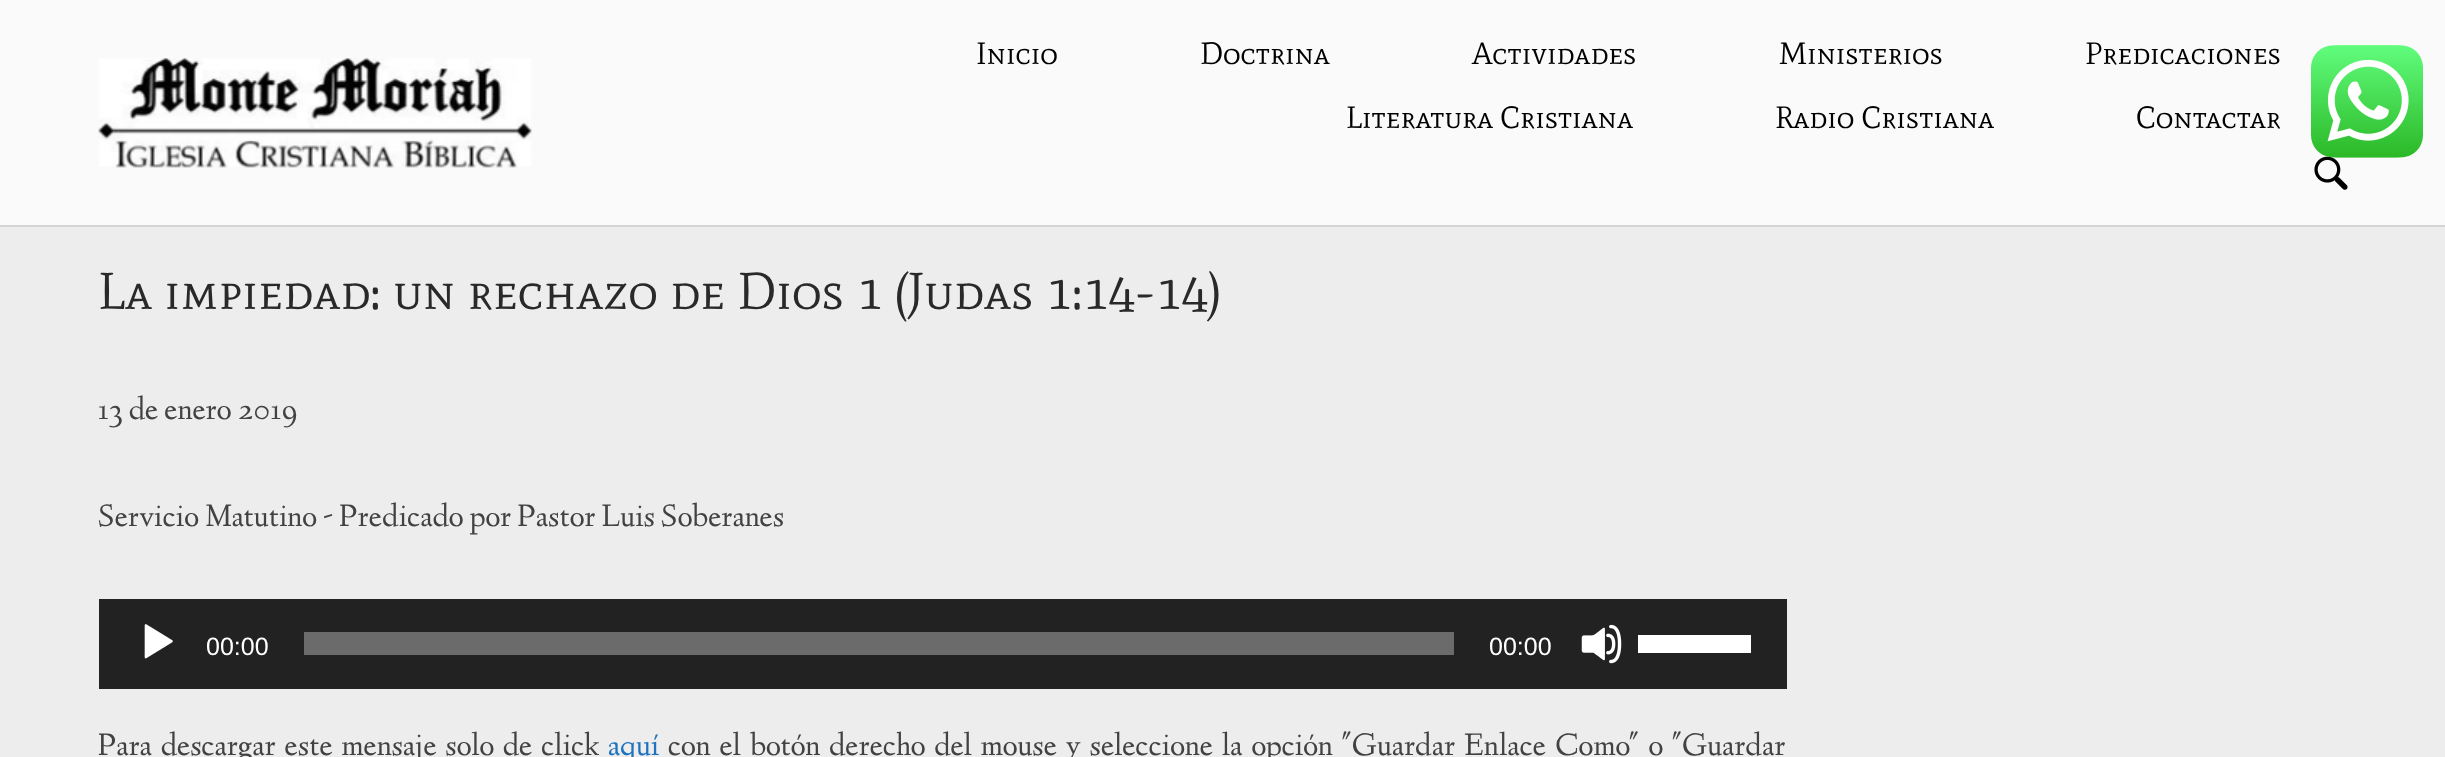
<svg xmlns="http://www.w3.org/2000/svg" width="2445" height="757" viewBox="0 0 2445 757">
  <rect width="100%" height="100%" fill="rgb(237,237,237)"/>
  <rect x="0" y="0" width="2445" height="225" fill="rgb(250,250,250)"/>
  <rect x="0" y="225" width="2445" height="2" fill="rgb(212,212,212)"/>
  <image x="98" y="58" width="434" height="110" href="pic1.png"/>
  <g font-family="Mate SC" font-size="30.75" fill="rgb(0,0,0)">
    <text x="976" y="64">Inicio</text>
    <text x="1200" y="64">Doctrina</text>
    <text x="1472" y="64">Actividades</text>
    <text x="1779" y="64">Ministerios</text>
    <text x="2085" y="64">Predicaciones</text>
    <text x="1346" y="128">Literatura Cristiana</text>
    <text x="1775" y="128">Radio Cristiana</text>
    <text x="2136" y="128">Contactar</text>
  </g>
  <image x="2314" y="156" width="34" height="34" href="pic2.png"/>
  <text x="98" y="309" font-family="Mate SC" font-size="51.8" fill="rgb(41,41,41)">La impiedad: un rechazo de Dios 1 (Judas 1:14-14)</text>
  <g font-family="Linden Hill" font-size="32.4" fill="rgb(66,66,66)">
    <text x="98" y="419">13 de enero 2019</text>
    <text x="98" y="526">Servicio Matutino - Predicado por Pastor Luis Soberanes</text>
  </g>
  <rect x="99" y="599" width="1688" height="90" fill="rgb(34,34,34)"/>
  <image x="144" y="624" width="29" height="35" href="pic3.png"/>
  <text x="206" y="655" font-family="Liberation Sans" font-size="25" fill="rgb(255,255,255)">00:00</text>
  <rect x="304" y="632" width="1150" height="23" fill="rgb(107,107,107)"/>
  <text x="1489" y="655" font-family="Liberation Sans" font-size="25" fill="rgb(255,255,255)">00:00</text>
  <image x="1581" y="624" width="41" height="40" href="pic4.png"/>
  <rect x="1638" y="635" width="113" height="18" fill="rgb(255,255,255)"/>
  <text x="98" y="755" word-spacing="2.75" font-family="Linden Hill" font-size="32.4" fill="rgb(66,66,66)">Para descargar este mensaje solo de click</text>
  <text x="608" y="755" font-family="Linden Hill" font-size="32.4" fill="rgb(30,115,190)">aquí</text>
  <text x="668" y="755" word-spacing="2.75" font-family="Linden Hill" font-size="32.4" fill="rgb(66,66,66)">con el botón derecho del mouse y seleccione la opción "Guardar Enlace Como" o "Guardar</text>
  <image x="2311" y="45" width="112" height="113" href="pic5.png"/>
</svg>
